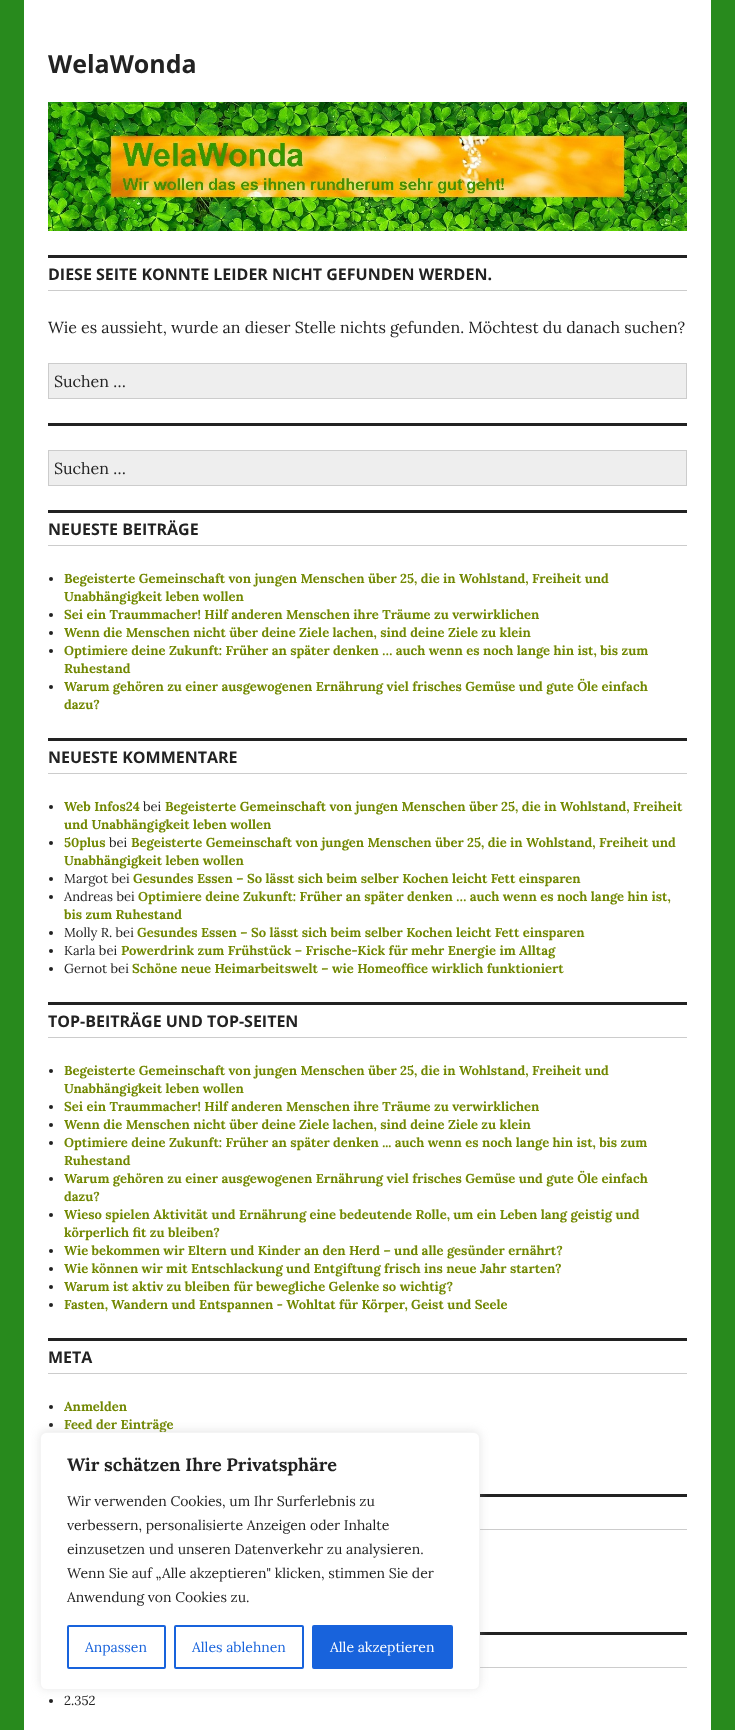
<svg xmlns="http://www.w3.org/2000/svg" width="735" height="1730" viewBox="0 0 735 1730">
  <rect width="100%" height="100%" fill="rgb(40,138,29)"/>
  <rect x="24" y="0" width="687" height="1730" fill="rgb(255,255,255)"/>
  <text x="48" y="73" font-family="Open Sans" font-size="25" font-weight="bold" fill="rgb(34,34,34)">WelaWonda</text>
  <image x="48" y="102" width="639" height="129" href="pic1.png"/>
  <rect x="48" y="255" width="639" height="3" fill="rgb(34,34,34)"/>
  <rect x="48" y="290" width="639" height="1" fill="rgb(204,204,204)"/>
  <text x="48" y="280" font-family="Open Sans" font-size="16" font-weight="bold" fill="rgb(34,34,34)">DIESE SEITE KONNTE LEIDER NICHT GEFUNDEN WERDEN.</text>
  <text x="48" y="333" font-family="Lora" font-size="16" fill="rgb(34,34,34)">Wie es aussieht, wurde an dieser Stelle nichts gefunden. Möchtest du danach suchen?</text>
  <rect x="48.5" y="363.5" width="638" height="35" fill="rgb(238,238,238)" stroke="rgb(204,204,204)"/>
  <text x="54" y="387" font-family="Lora" font-size="16" fill="rgb(34,34,34)">Suchen …</text>
  <rect x="48" y="423" width="639" height="3" fill="rgb(34,34,34)"/>
  <rect x="48.5" y="450.5" width="638" height="35" fill="rgb(238,238,238)" stroke="rgb(204,204,204)"/>
  <text x="54" y="474" font-family="Lora" font-size="16" fill="rgb(34,34,34)">Suchen …</text>
  <rect x="48" y="510" width="639" height="3" fill="rgb(34,34,34)"/>
  <rect x="48" y="545" width="639" height="1" fill="rgb(204,204,204)"/>
  <text x="48" y="535" font-family="Open Sans" font-size="16" font-weight="bold" fill="rgb(34,34,34)">NEUESTE BEITRÄGE</text>
  <circle cx="51" cy="579" r="2" fill="rgb(34,34,34)"/>
  <g font-family="Lora" font-size="13" font-weight="bold" fill="rgb(114,136,2)">
    <text>
      <tspan x="64" y="583">Begeisterte Gemeinschaft von jungen Menschen über 25, die in Wohlstand, Freiheit und</tspan>
      <tspan x="64" y="601">Unabhängigkeit leben wollen</tspan>
    </text>
  </g>
  <circle cx="51" cy="615" r="2" fill="rgb(34,34,34)"/>
  <text x="64" y="619" font-family="Lora" font-size="13" font-weight="bold" fill="rgb(114,136,2)">Sei ein Traummacher! Hilf anderen Menschen ihre Träume zu verwirklichen</text>
  <circle cx="51" cy="633" r="2" fill="rgb(34,34,34)"/>
  <text x="64" y="637" font-family="Lora" font-size="13" font-weight="bold" fill="rgb(114,136,2)">Wenn die Menschen nicht über deine Ziele lachen, sind deine Ziele zu klein</text>
  <circle cx="51" cy="651" r="2" fill="rgb(34,34,34)"/>
  <g font-family="Lora" font-size="13" font-weight="bold" fill="rgb(114,136,2)">
    <text>
      <tspan x="64" y="655">Optimiere deine Zukunft: Früher an später denken … auch wenn es noch lange hin ist, bis zum</tspan>
      <tspan x="64" y="673">Ruhestand</tspan>
    </text>
  </g>
  <circle cx="51" cy="687" r="2" fill="rgb(34,34,34)"/>
  <g font-family="Lora" font-size="13" font-weight="bold" fill="rgb(114,136,2)">
    <text>
      <tspan x="64" y="691">Warum gehören zu einer ausgewogenen Ernährung viel frisches Gemüse und gute Öle einfach</tspan>
      <tspan x="64" y="709">dazu?</tspan>
    </text>
  </g>
  <rect x="48" y="738" width="639" height="3" fill="rgb(34,34,34)"/>
  <rect x="48" y="773" width="639" height="1" fill="rgb(204,204,204)"/>
  <text x="48" y="763" font-family="Open Sans" font-size="16" font-weight="bold" fill="rgb(34,34,34)">NEUESTE KOMMENTARE</text>
  <circle cx="51" cy="807" r="2" fill="rgb(34,34,34)"/>
  <text x="64" y="811" font-family="Lora" font-size="13" font-weight="bold" fill="rgb(114,136,2)">Web Infos24</text>
  <text x="143" y="811" font-family="Lora" font-size="13" fill="rgb(34,34,34)">bei</text>
  <g font-family="Lora" font-size="13" font-weight="bold" fill="rgb(114,136,2)">
    <text x="165" y="811">Begeisterte Gemeinschaft von jungen Menschen über 25, die in Wohlstand, Freiheit</text>
    <text x="64" y="829">und Unabhängigkeit leben wollen</text>
  </g>
  <circle cx="51" cy="843" r="2" fill="rgb(34,34,34)"/>
  <text x="64" y="847" font-family="Lora" font-size="13" font-weight="bold" fill="rgb(114,136,2)">50plus</text>
  <text x="109" y="847" font-family="Lora" font-size="13" fill="rgb(34,34,34)">bei</text>
  <g font-family="Lora" font-size="13" font-weight="bold" fill="rgb(114,136,2)">
    <text x="131" y="847">Begeisterte Gemeinschaft von jungen Menschen über 25, die in Wohlstand, Freiheit und</text>
    <text x="64" y="865">Unabhängigkeit leben wollen</text>
  </g>
  <circle cx="51" cy="879" r="2" fill="rgb(34,34,34)"/>
  <text x="64" y="883" font-family="Lora" font-size="13" fill="rgb(34,34,34)">Margot bei</text>
  <text x="133" y="883" font-family="Lora" font-size="13" font-weight="bold" fill="rgb(114,136,2)">Gesundes Essen – So lässt sich beim selber Kochen leicht Fett einsparen</text>
  <circle cx="51" cy="897" r="2" fill="rgb(34,34,34)"/>
  <text x="64" y="901" font-family="Lora" font-size="13" fill="rgb(34,34,34)">Andreas bei</text>
  <g font-family="Lora" font-size="13" font-weight="bold" fill="rgb(114,136,2)">
    <text x="138" y="901">Optimiere deine Zukunft: Früher an später denken … auch wenn es noch lange hin ist,</text>
    <text x="64" y="919">bis zum Ruhestand</text>
  </g>
  <circle cx="51" cy="933" r="2" fill="rgb(34,34,34)"/>
  <text x="64" y="937" font-family="Lora" font-size="13" fill="rgb(34,34,34)">Molly R. bei</text>
  <text x="137" y="937" font-family="Lora" font-size="13" font-weight="bold" fill="rgb(114,136,2)">Gesundes Essen – So lässt sich beim selber Kochen leicht Fett einsparen</text>
  <circle cx="51" cy="951" r="2" fill="rgb(34,34,34)"/>
  <text x="64" y="955" font-family="Lora" font-size="13" fill="rgb(34,34,34)">Karla bei</text>
  <text x="121" y="955" font-family="Lora" font-size="13" font-weight="bold" fill="rgb(114,136,2)">Powerdrink zum Frühstück – Frische-Kick für mehr Energie im Alltag</text>
  <circle cx="51" cy="969" r="2" fill="rgb(34,34,34)"/>
  <text x="64" y="973" font-family="Lora" font-size="13" fill="rgb(34,34,34)">Gernot bei</text>
  <text x="132" y="973" font-family="Lora" font-size="13" font-weight="bold" fill="rgb(114,136,2)">Schöne neue Heimarbeitswelt – wie Homeoffice wirklich funktioniert</text>
  <rect x="48" y="1002" width="639" height="3" fill="rgb(34,34,34)"/>
  <rect x="48" y="1037" width="639" height="1" fill="rgb(204,204,204)"/>
  <text x="48" y="1027" font-family="Open Sans" font-size="16" font-weight="bold" fill="rgb(34,34,34)">TOP-BEITRÄGE UND TOP-SEITEN</text>
  <circle cx="51" cy="1071" r="2" fill="rgb(34,34,34)"/>
  <g font-family="Lora" font-size="13" font-weight="bold" fill="rgb(114,136,2)">
    <text>
      <tspan x="64" y="1075">Begeisterte Gemeinschaft von jungen Menschen über 25, die in Wohlstand, Freiheit und</tspan>
      <tspan x="64" y="1093">Unabhängigkeit leben wollen</tspan>
    </text>
  </g>
  <circle cx="51" cy="1107" r="2" fill="rgb(34,34,34)"/>
  <text x="64" y="1111" font-family="Lora" font-size="13" font-weight="bold" fill="rgb(114,136,2)">Sei ein Traummacher! Hilf anderen Menschen ihre Träume zu verwirklichen</text>
  <circle cx="51" cy="1125" r="2" fill="rgb(34,34,34)"/>
  <text x="64" y="1129" font-family="Lora" font-size="13" font-weight="bold" fill="rgb(114,136,2)">Wenn die Menschen nicht über deine Ziele lachen, sind deine Ziele zu klein</text>
  <circle cx="51" cy="1143" r="2" fill="rgb(34,34,34)"/>
  <g font-family="Lora" font-size="13" font-weight="bold" fill="rgb(114,136,2)">
    <text>
      <tspan x="64" y="1147">Optimiere deine Zukunft: Früher an später denken ... auch wenn es noch lange hin ist, bis zum</tspan>
      <tspan x="64" y="1165">Ruhestand</tspan>
    </text>
  </g>
  <circle cx="51" cy="1179" r="2" fill="rgb(34,34,34)"/>
  <g font-family="Lora" font-size="13" font-weight="bold" fill="rgb(114,136,2)">
    <text>
      <tspan x="64" y="1183">Warum gehören zu einer ausgewogenen Ernährung viel frisches Gemüse und gute Öle einfach</tspan>
      <tspan x="64" y="1201">dazu?</tspan>
    </text>
  </g>
  <circle cx="51" cy="1215" r="2" fill="rgb(34,34,34)"/>
  <g font-family="Lora" font-size="13" font-weight="bold" fill="rgb(114,136,2)">
    <text>
      <tspan x="64" y="1219">Wieso spielen Aktivität und Ernährung eine bedeutende Rolle, um ein Leben lang geistig und</tspan>
      <tspan x="64" y="1237">körperlich fit zu bleiben?</tspan>
    </text>
  </g>
  <circle cx="51" cy="1251" r="2" fill="rgb(34,34,34)"/>
  <text x="64" y="1255" font-family="Lora" font-size="13" font-weight="bold" fill="rgb(114,136,2)">Wie bekommen wir Eltern und Kinder an den Herd – und alle gesünder ernährt?</text>
  <circle cx="51" cy="1269" r="2" fill="rgb(34,34,34)"/>
  <text x="64" y="1273" font-family="Lora" font-size="13" font-weight="bold" fill="rgb(114,136,2)">Wie können wir mit Entschlackung und Entgiftung frisch ins neue Jahr starten?</text>
  <circle cx="51" cy="1287" r="2" fill="rgb(34,34,34)"/>
  <text x="64" y="1291" font-family="Lora" font-size="13" font-weight="bold" fill="rgb(114,136,2)">Warum ist aktiv zu bleiben für bewegliche Gelenke so wichtig?</text>
  <circle cx="51" cy="1305" r="2" fill="rgb(34,34,34)"/>
  <text x="64" y="1309" font-family="Lora" font-size="13" font-weight="bold" fill="rgb(114,136,2)">Fasten, Wandern und Entspannen - Wohltat für Körper, Geist und Seele</text>
  <rect x="48" y="1338" width="639" height="3" fill="rgb(34,34,34)"/>
  <rect x="48" y="1373" width="639" height="1" fill="rgb(204,204,204)"/>
  <text x="48" y="1363" font-family="Open Sans" font-size="16" font-weight="bold" fill="rgb(34,34,34)">META</text>
  <circle cx="51" cy="1407" r="2" fill="rgb(34,34,34)"/>
  <text x="64" y="1411" font-family="Lora" font-size="13" font-weight="bold" fill="rgb(114,136,2)">Anmelden</text>
  <circle cx="51" cy="1425" r="2" fill="rgb(34,34,34)"/>
  <text x="64" y="1429" font-family="Lora" font-size="13" font-weight="bold" fill="rgb(114,136,2)">Feed der Einträge</text>
  <rect x="480" y="1494" width="207" height="3" fill="rgb(34,34,34)"/>
  <rect x="480" y="1529" width="207" height="1" fill="rgb(204,204,204)"/>
  <rect x="480" y="1632" width="207" height="3" fill="rgb(34,34,34)"/>
  <rect x="480" y="1667" width="207" height="1" fill="rgb(204,204,204)"/>
  <circle cx="51" cy="1701" r="2" fill="rgb(34,34,34)"/>
  <text x="64" y="1705" font-family="Lora" font-size="13" fill="rgb(34,34,34)">2.352</text>
  <rect x="40" y="1431" width="440" height="258" rx="6" fill="rgba(172,171,171,0.3)" filter="blur(5px)"/>
  <rect x="40.5" y="1432.5" width="439" height="257" rx="5.5" fill="rgb(255,255,255)" stroke="rgb(244,244,244)"/>
  <text x="67" y="1471" font-family="Lora" font-size="18" font-weight="bold" fill="rgb(34,34,34)">Wir schätzen Ihre Privatsphäre</text>
  <g font-family="Lora" font-size="14" fill="rgb(34,34,34)">
    <text>
      <tspan x="67" y="1506">Wir verwenden Cookies, um Ihr Surferlebnis zu</tspan>
      <tspan x="67" y="1530">verbessern, personalisierte Anzeigen oder Inhalte</tspan>
      <tspan x="67" y="1554">einzusetzen und unseren Datenverkehr zu analysieren.</tspan>
      <tspan x="67" y="1578">Wenn Sie auf „Alle akzeptieren" klicken, stimmen Sie der</tspan>
      <tspan x="67" y="1602">Anwendung von Cookies zu.</tspan>
    </text>
  </g>
  <rect x="68" y="1626" width="97" height="42" rx="1" fill="none" stroke="rgb(24,99,220)" stroke-width="2"/>
  <text x="85" y="1652" font-family="Lora" font-size="14" fill="rgb(24,99,220)">Anpassen</text>
  <rect x="175" y="1626" width="128" height="42" rx="1" fill="none" stroke="rgb(24,99,220)" stroke-width="2"/>
  <text x="192" y="1652" font-family="Lora" font-size="14" fill="rgb(24,99,220)">Alles ablehnen</text>
  <rect x="313" y="1626" width="139" height="42" rx="1" fill="rgb(24,99,220)" stroke="rgb(24,99,220)" stroke-width="2"/>
  <text x="330" y="1652" font-family="Lora" font-size="14" fill="rgb(255,255,255)">Alle akzeptieren</text>
</svg>
